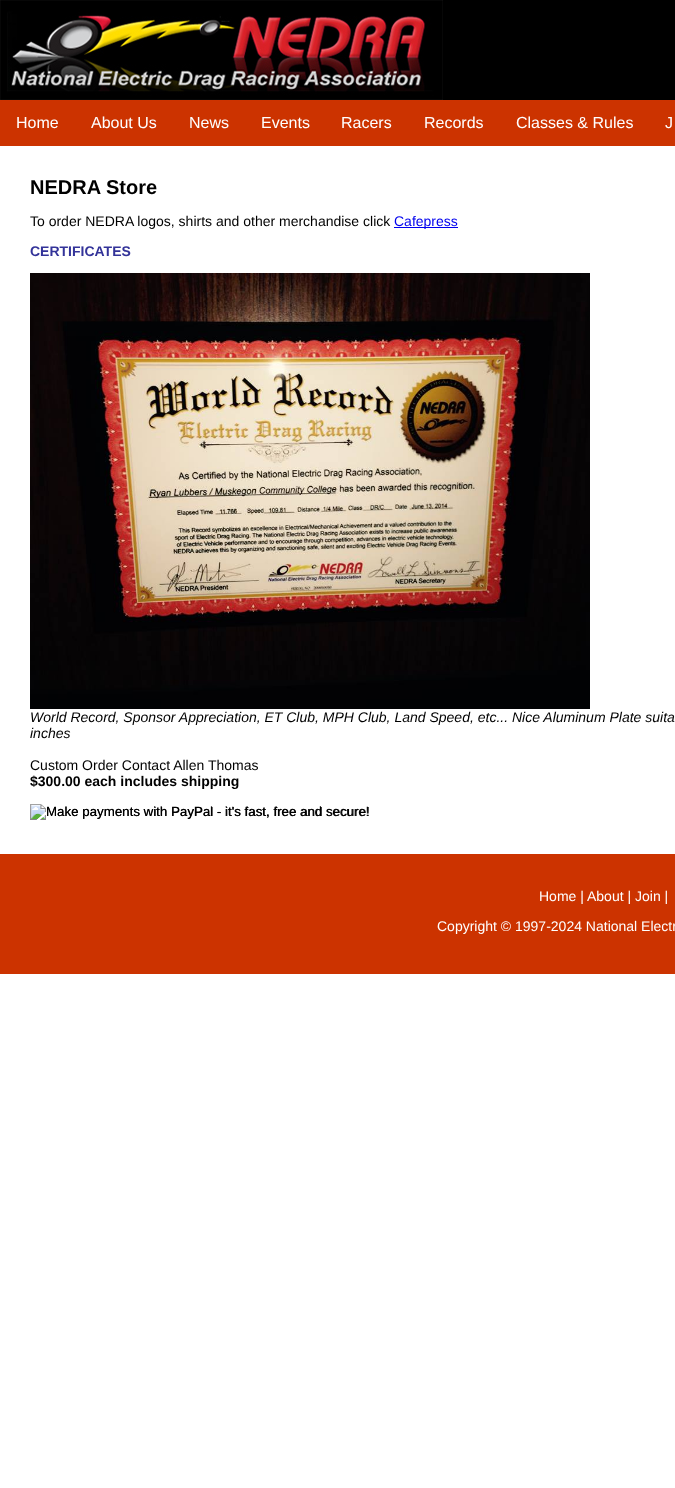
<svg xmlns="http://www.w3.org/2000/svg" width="675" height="1488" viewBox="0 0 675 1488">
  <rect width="100%" height="100%" fill="rgb(255,255,255)"/>
  <rect x="443" y="0" width="232" height="100" fill="rgb(0,0,0)"/>
  <image x="0" y="0" width="443" height="100" href="pic1.png"/>
  <rect x="0" y="100" width="675" height="46" fill="rgb(204,51,0)"/>
  <g font-family="Liberation Sans" font-size="16" fill="rgb(255,255,255)">
    <text x="16" y="128">Home</text>
    <text x="91" y="128">About Us</text>
    <text x="189" y="128">News</text>
    <text x="261" y="128">Events</text>
    <text x="341" y="128">Racers</text>
    <text x="424" y="128">Records</text>
    <text x="516" y="128">Classes &amp; Rules</text>
    <text x="665" y="128">J</text>
  </g>
  <text x="30" y="194" font-family="Liberation Sans" font-size="20" font-weight="bold" fill="rgb(0,0,0)">NEDRA Store</text>
  <text x="30" y="226" font-family="Liberation Sans" font-size="14" fill="rgb(0,0,0)">To order NEDRA logos, shirts and other merchandise click</text>
  <rect x="394" y="227" width="64" height="1" fill="rgb(0,0,238)"/>
  <text x="394" y="226" font-family="Liberation Sans" font-size="14" fill="rgb(0,0,238)">Cafepress</text>
  <text x="30" y="256" font-family="Liberation Sans" font-size="14" font-weight="bold" fill="rgb(51,51,153)">CERTIFICATES</text>
  <image x="30" y="273" width="560" height="436" href="pic2.png"/>
  <g font-family="Liberation Sans" font-size="14" font-style="italic" fill="rgb(0,0,0)">
    <text>
      <tspan x="30" y="722">World Record, Sponsor Appreciation, ET Club, MPH Club, Land Speed, etc... Nice Aluminum Plate suita</tspan>
      <tspan x="30" y="738">inches</tspan>
    </text>
  </g>
  <text x="30" y="770" font-family="Liberation Sans" font-size="14" fill="rgb(0,0,0)">Custom Order Contact Allen Thomas</text>
  <text x="30" y="786" font-family="Liberation Sans" font-size="14" font-weight="bold" fill="rgb(0,0,0)">$300.00 each includes shipping</text>
  <image x="30" y="804" width="339" height="16" href="pic3.png"/>
  <text x="46" y="816" font-family="Liberation Sans" font-size="13.3" fill="rgb(0,0,0)">Make payments with PayPal - it's fast, free and secure!</text>
  <rect x="0" y="854" width="675" height="120" fill="rgb(204,51,0)"/>
  <g font-family="Liberation Sans" font-size="14" fill="rgb(255,255,255)">
    <text x="539" y="901">Home |</text>
    <text x="587" y="901">About | Join |</text>
    <text x="437" y="931">Copyright © 1997-2024 National Electr</text>
  </g>
</svg>
